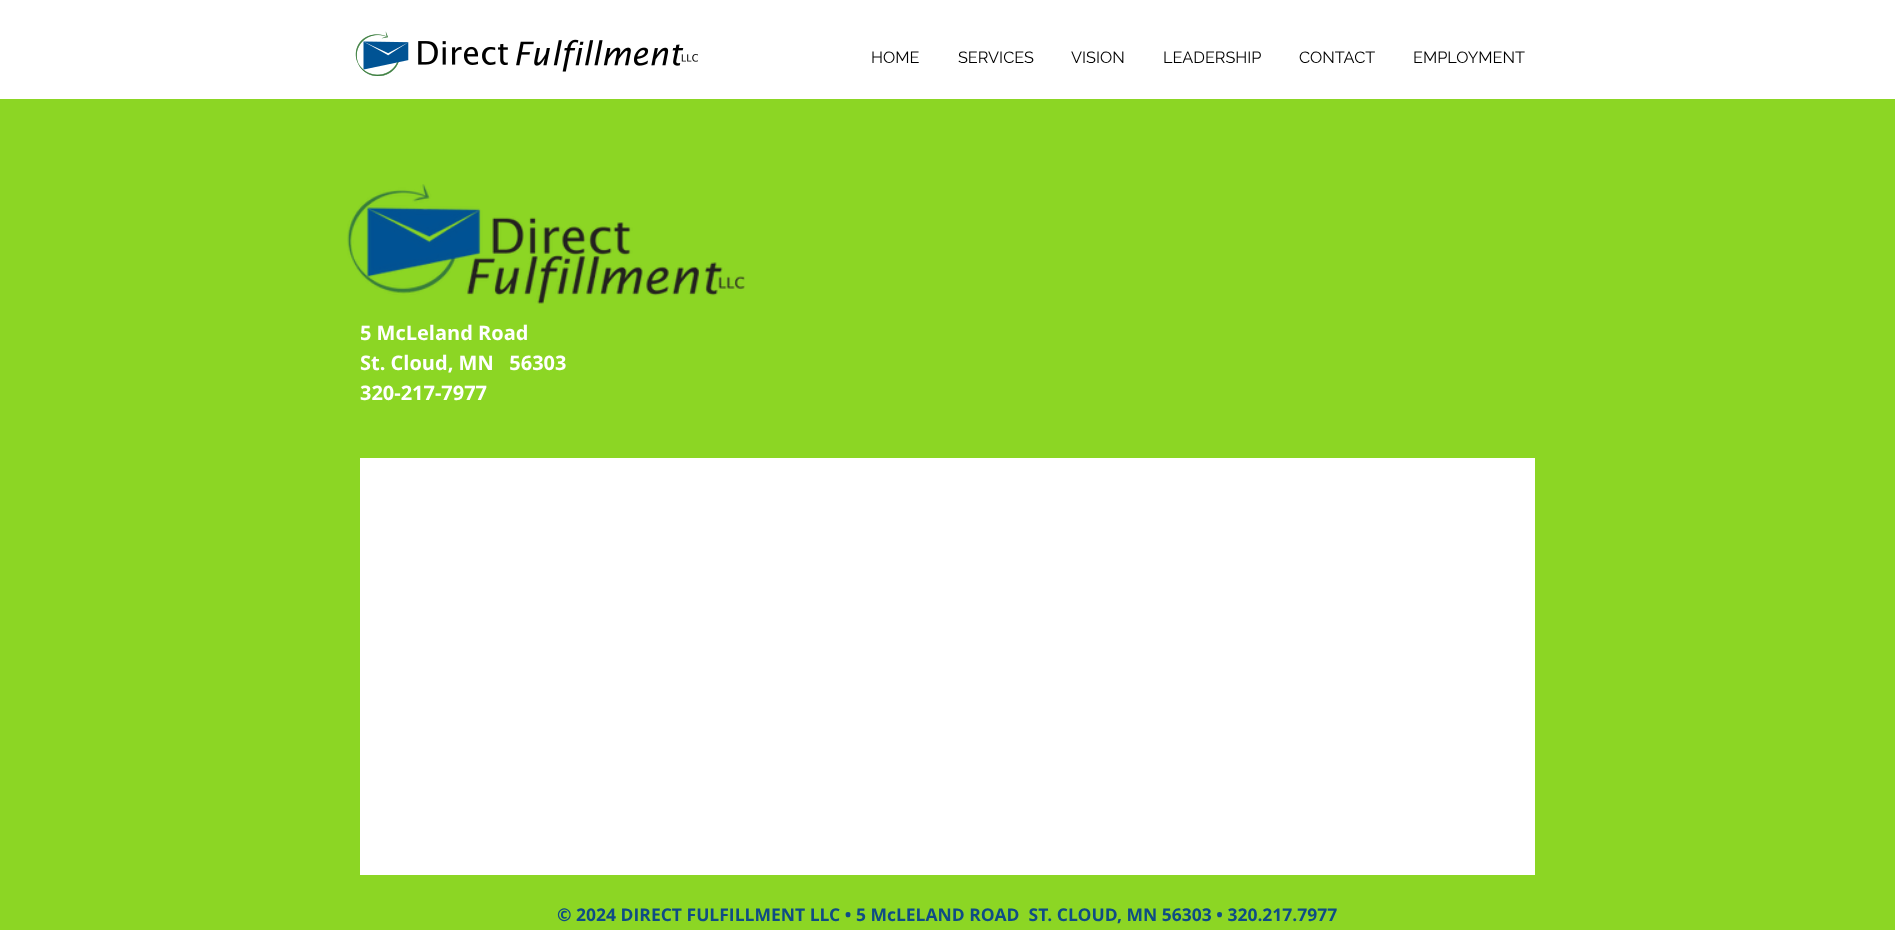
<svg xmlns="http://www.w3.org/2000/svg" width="1895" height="930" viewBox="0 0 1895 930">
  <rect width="100%" height="100%" fill="rgb(140,214,36)"/>
  <rect x="0" y="0" width="1895" height="99" fill="rgb(255,255,255)"/>
  <image x="355" y="31" width="343" height="45" href="pic1.png"/>
  <g font-family="Raleway" font-size="16.25" fill="rgb(0,0,0)">
    <text x="871" y="63">HOME</text>
    <text x="958" y="63">SERVICES</text>
    <text x="1071" y="63">VISION</text>
    <text x="1163" y="63">LEADERSHIP</text>
    <text x="1299" y="63">CONTACT</text>
    <text x="1413" y="63">EMPLOYMENT</text>
  </g>
  <image x="347" y="184" width="398" height="120" href="pic2.png"/>
  <g font-family="Open Sans" font-size="20" font-weight="bold" fill="rgb(255,255,255)">
    <text xml:space="preserve"><tspan x="360" y="340">5 McLeland Road</tspan><tspan x="360" y="370">St. Cloud, MN   56303</tspan><tspan x="360" y="400">320-217-7977</tspan></text>
  </g>
  <rect x="360" y="458" width="1175" height="417" fill="rgb(255,255,255)"/>
  <text x="557" y="921" font-family="Open Sans" font-size="17.5" font-weight="bold" fill="rgb(15,76,133)" xml:space="preserve">© 2024 DIRECT FULFILLMENT LLC • 5 McLELAND ROAD  ST. CLOUD, MN 56303 • 320.217.7977</text>
</svg>
